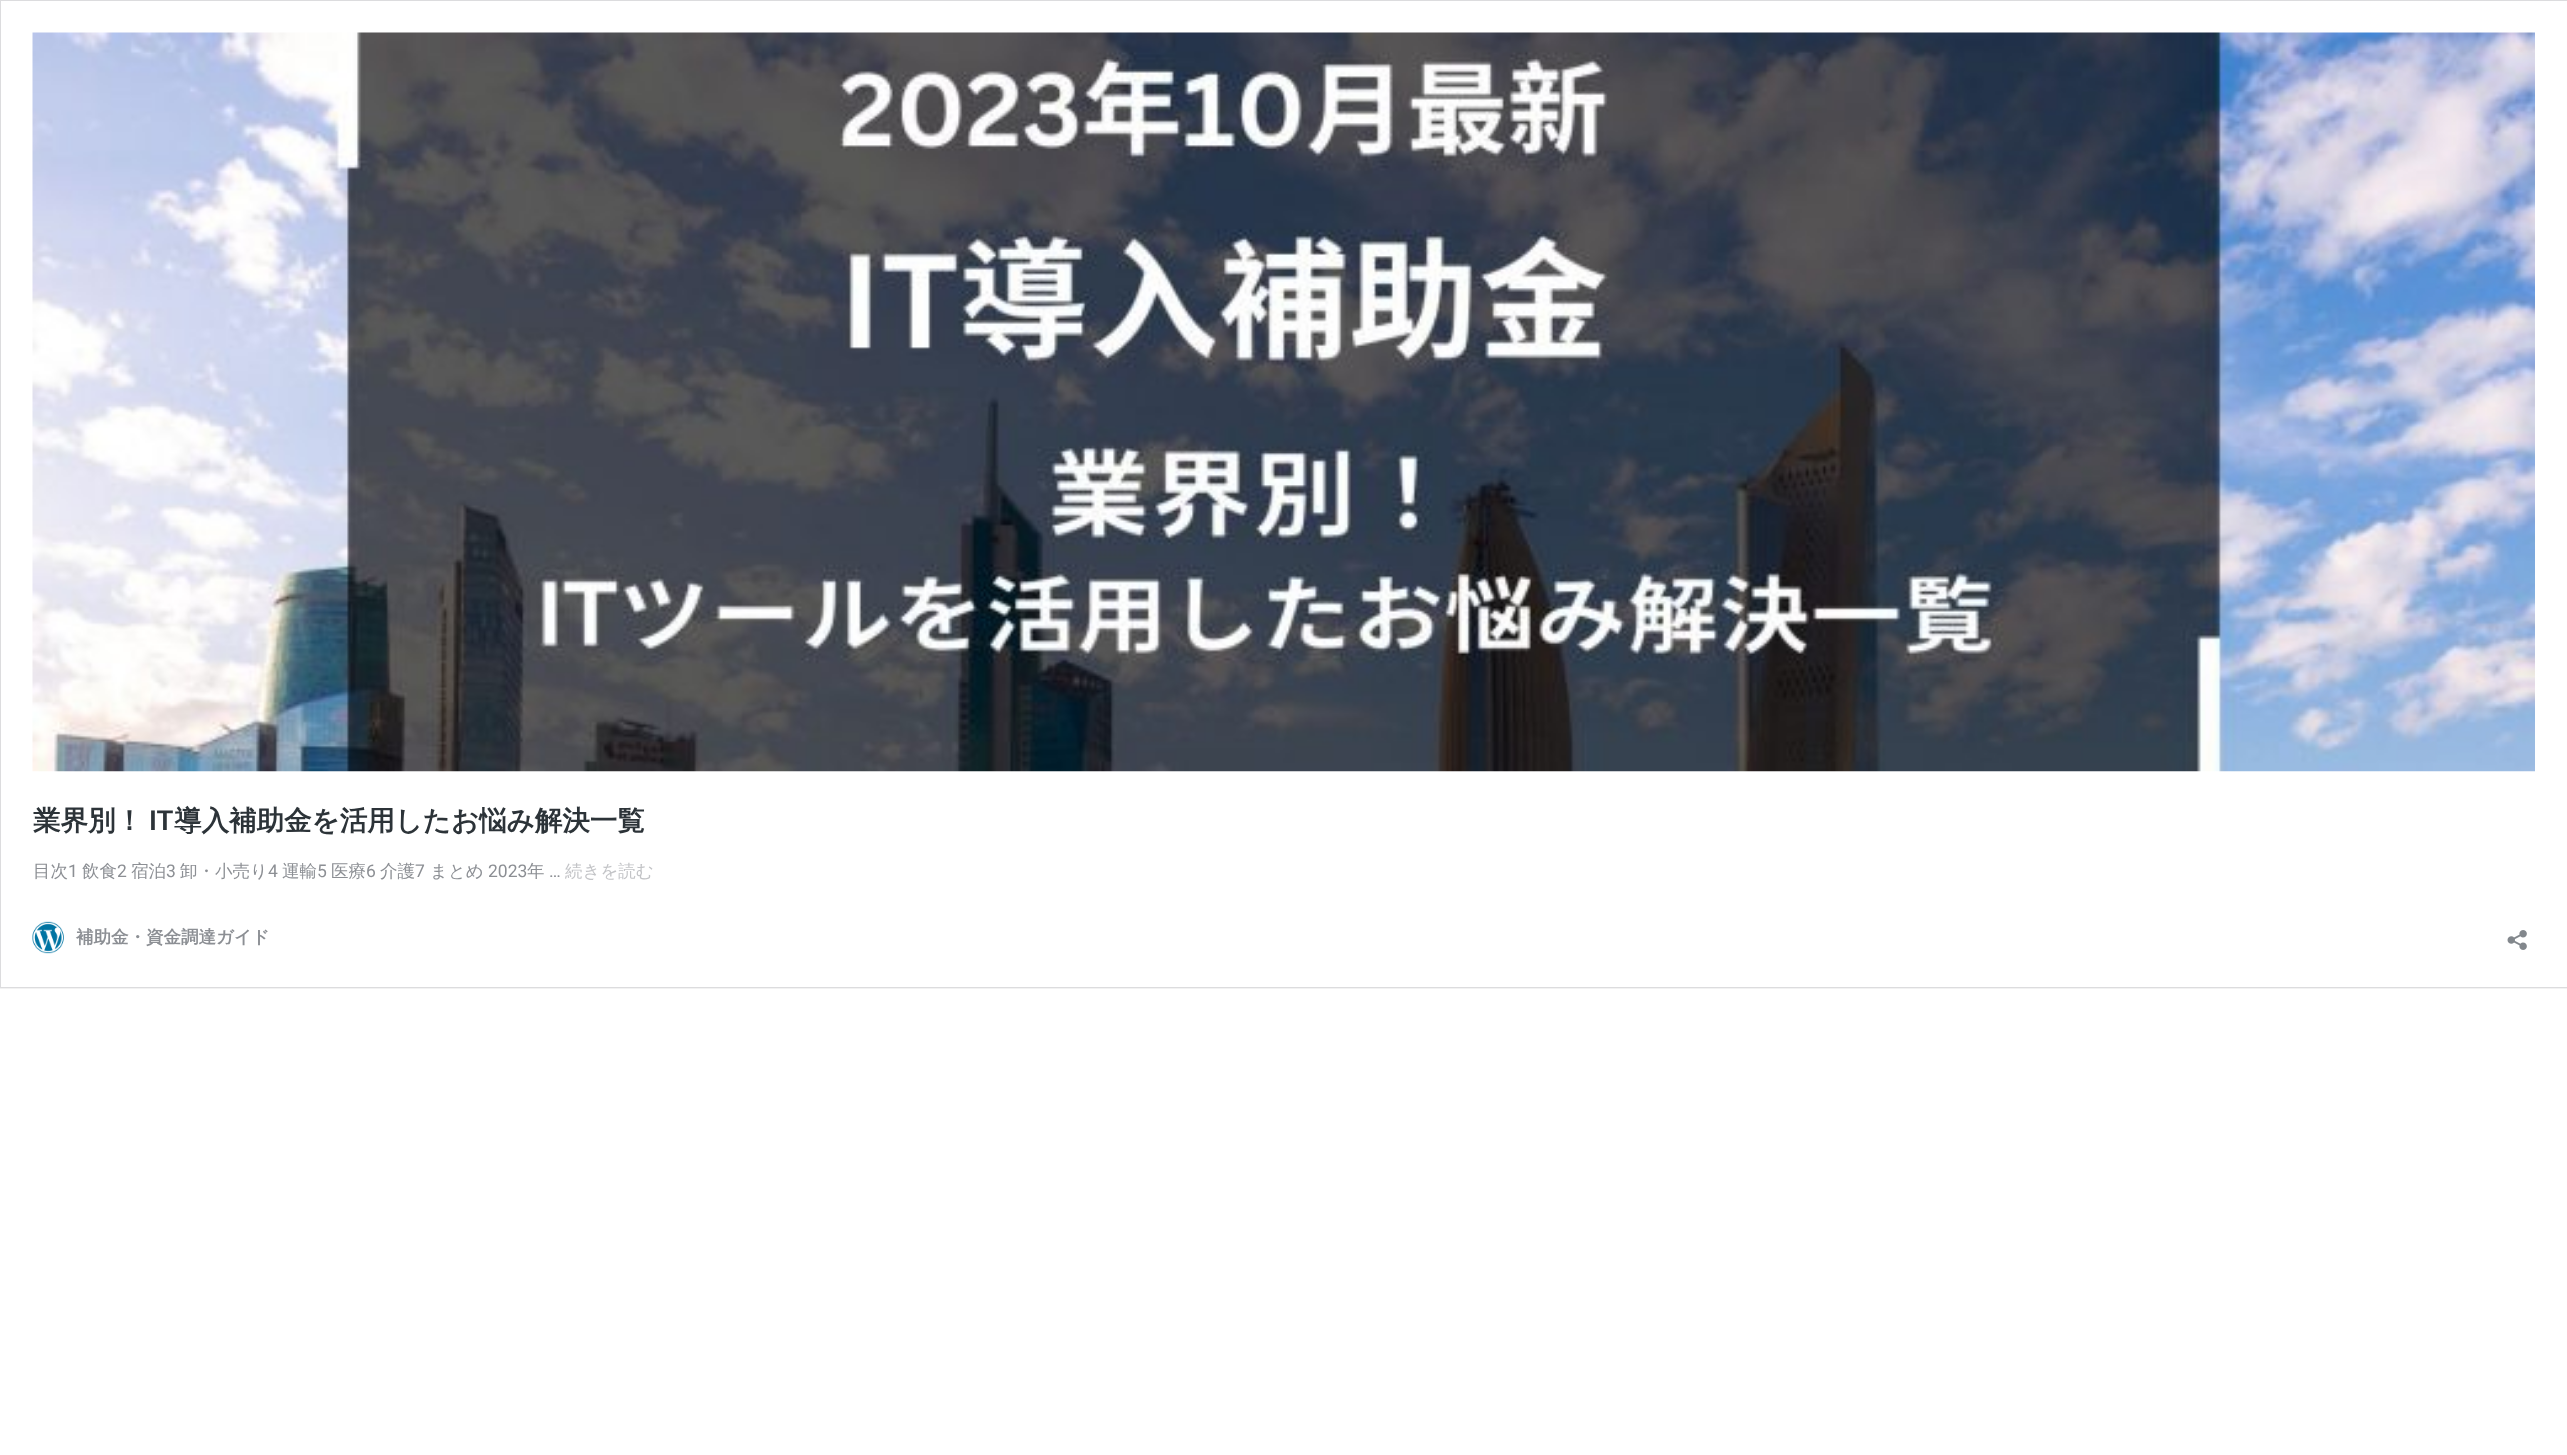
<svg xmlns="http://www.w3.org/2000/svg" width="2567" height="1455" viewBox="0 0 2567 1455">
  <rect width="100%" height="100%" fill="rgb(255,255,255)"/>
  <rect x="0" y="1" width="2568" height="988" fill="rgba(0,0,0,0.05)" filter="blur(0.5px)"/>
  <rect x="0.5" y="0.5" width="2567" height="987" fill="rgb(255,255,255)" stroke="rgb(220,220,222)"/>
  <image x="32" y="32" width="2503" height="740" href="pic1.png"/>
  <text x="33" y="830" font-family="WenQuanYi Zen Hei" font-size="27.5" font-weight="bold" fill="rgb(44,51,56)">業界別！</text>
  <text x="149" y="830" font-family="Roboto" font-size="27.5" font-weight="600" fill="rgb(44,51,56)">IT</text>
  <text x="174" y="830" font-family="WenQuanYi Zen Hei" font-size="27.5" font-weight="bold" fill="rgb(44,51,56)">導入補助金を活用したお悩み解決一覧</text>
  <text x="33" y="877" font-family="WenQuanYi Zen Hei" font-size="17.5" font-weight="500" fill="rgb(140,143,148)">目次</text>
  <text x="68" y="877" font-family="Roboto" font-size="17.5" fill="rgb(140,143,148)">1</text>
  <text x="82" y="877" font-family="WenQuanYi Zen Hei" font-size="17.5" font-weight="500" fill="rgb(140,143,148)">飲食</text>
  <text x="117" y="877" font-family="Roboto" font-size="17.5" fill="rgb(140,143,148)">2</text>
  <text x="131" y="877" font-family="WenQuanYi Zen Hei" font-size="17.5" font-weight="500" fill="rgb(140,143,148)">宿泊</text>
  <text x="166" y="877" font-family="Roboto" font-size="17.5" fill="rgb(140,143,148)">3</text>
  <text x="180" y="877" font-family="WenQuanYi Zen Hei" font-size="17.5" font-weight="500" fill="rgb(140,143,148)">卸・小売り</text>
  <text x="268" y="877" font-family="Roboto" font-size="17.5" fill="rgb(140,143,148)">4</text>
  <text x="282" y="877" font-family="WenQuanYi Zen Hei" font-size="17.5" font-weight="500" fill="rgb(140,143,148)">運輸</text>
  <text x="317" y="877" font-family="Roboto" font-size="17.5" fill="rgb(140,143,148)">5</text>
  <text x="331" y="877" font-family="WenQuanYi Zen Hei" font-size="17.5" font-weight="500" fill="rgb(140,143,148)">医療</text>
  <text x="366" y="877" font-family="Roboto" font-size="17.5" fill="rgb(140,143,148)">6</text>
  <text x="380" y="877" font-family="WenQuanYi Zen Hei" font-size="17.5" font-weight="500" fill="rgb(140,143,148)">介護</text>
  <text x="415" y="877" font-family="Roboto" font-size="17.5" fill="rgb(140,143,148)">7</text>
  <text x="430" y="877" font-family="WenQuanYi Zen Hei" font-size="17.5" font-weight="500" fill="rgb(140,143,148)">まとめ</text>
  <text x="488" y="877" font-family="Roboto" font-size="17.5" fill="rgb(140,143,148)">2023</text>
  <text x="527" y="877" font-family="WenQuanYi Zen Hei" font-size="17.5" font-weight="500" fill="rgb(140,143,148)">年</text>
  <text x="549" y="877" font-family="Roboto" font-size="17.5" fill="rgb(140,143,148)">…</text>
  <text x="565" y="877" font-family="WenQuanYi Zen Hei" font-size="17.5" font-weight="500" fill="rgb(195,196,199)">続きを読む</text>
  <image x="32" y="921" width="32" height="33" href="pic2.png"/>
  <text x="76" y="943" font-family="WenQuanYi Zen Hei" font-size="17.5" font-weight="bold" fill="rgb(140,143,148)">補助金・資金調達ガイド</text>
  <image x="2507" y="930" width="20" height="20" href="pic3.png"/>
</svg>
